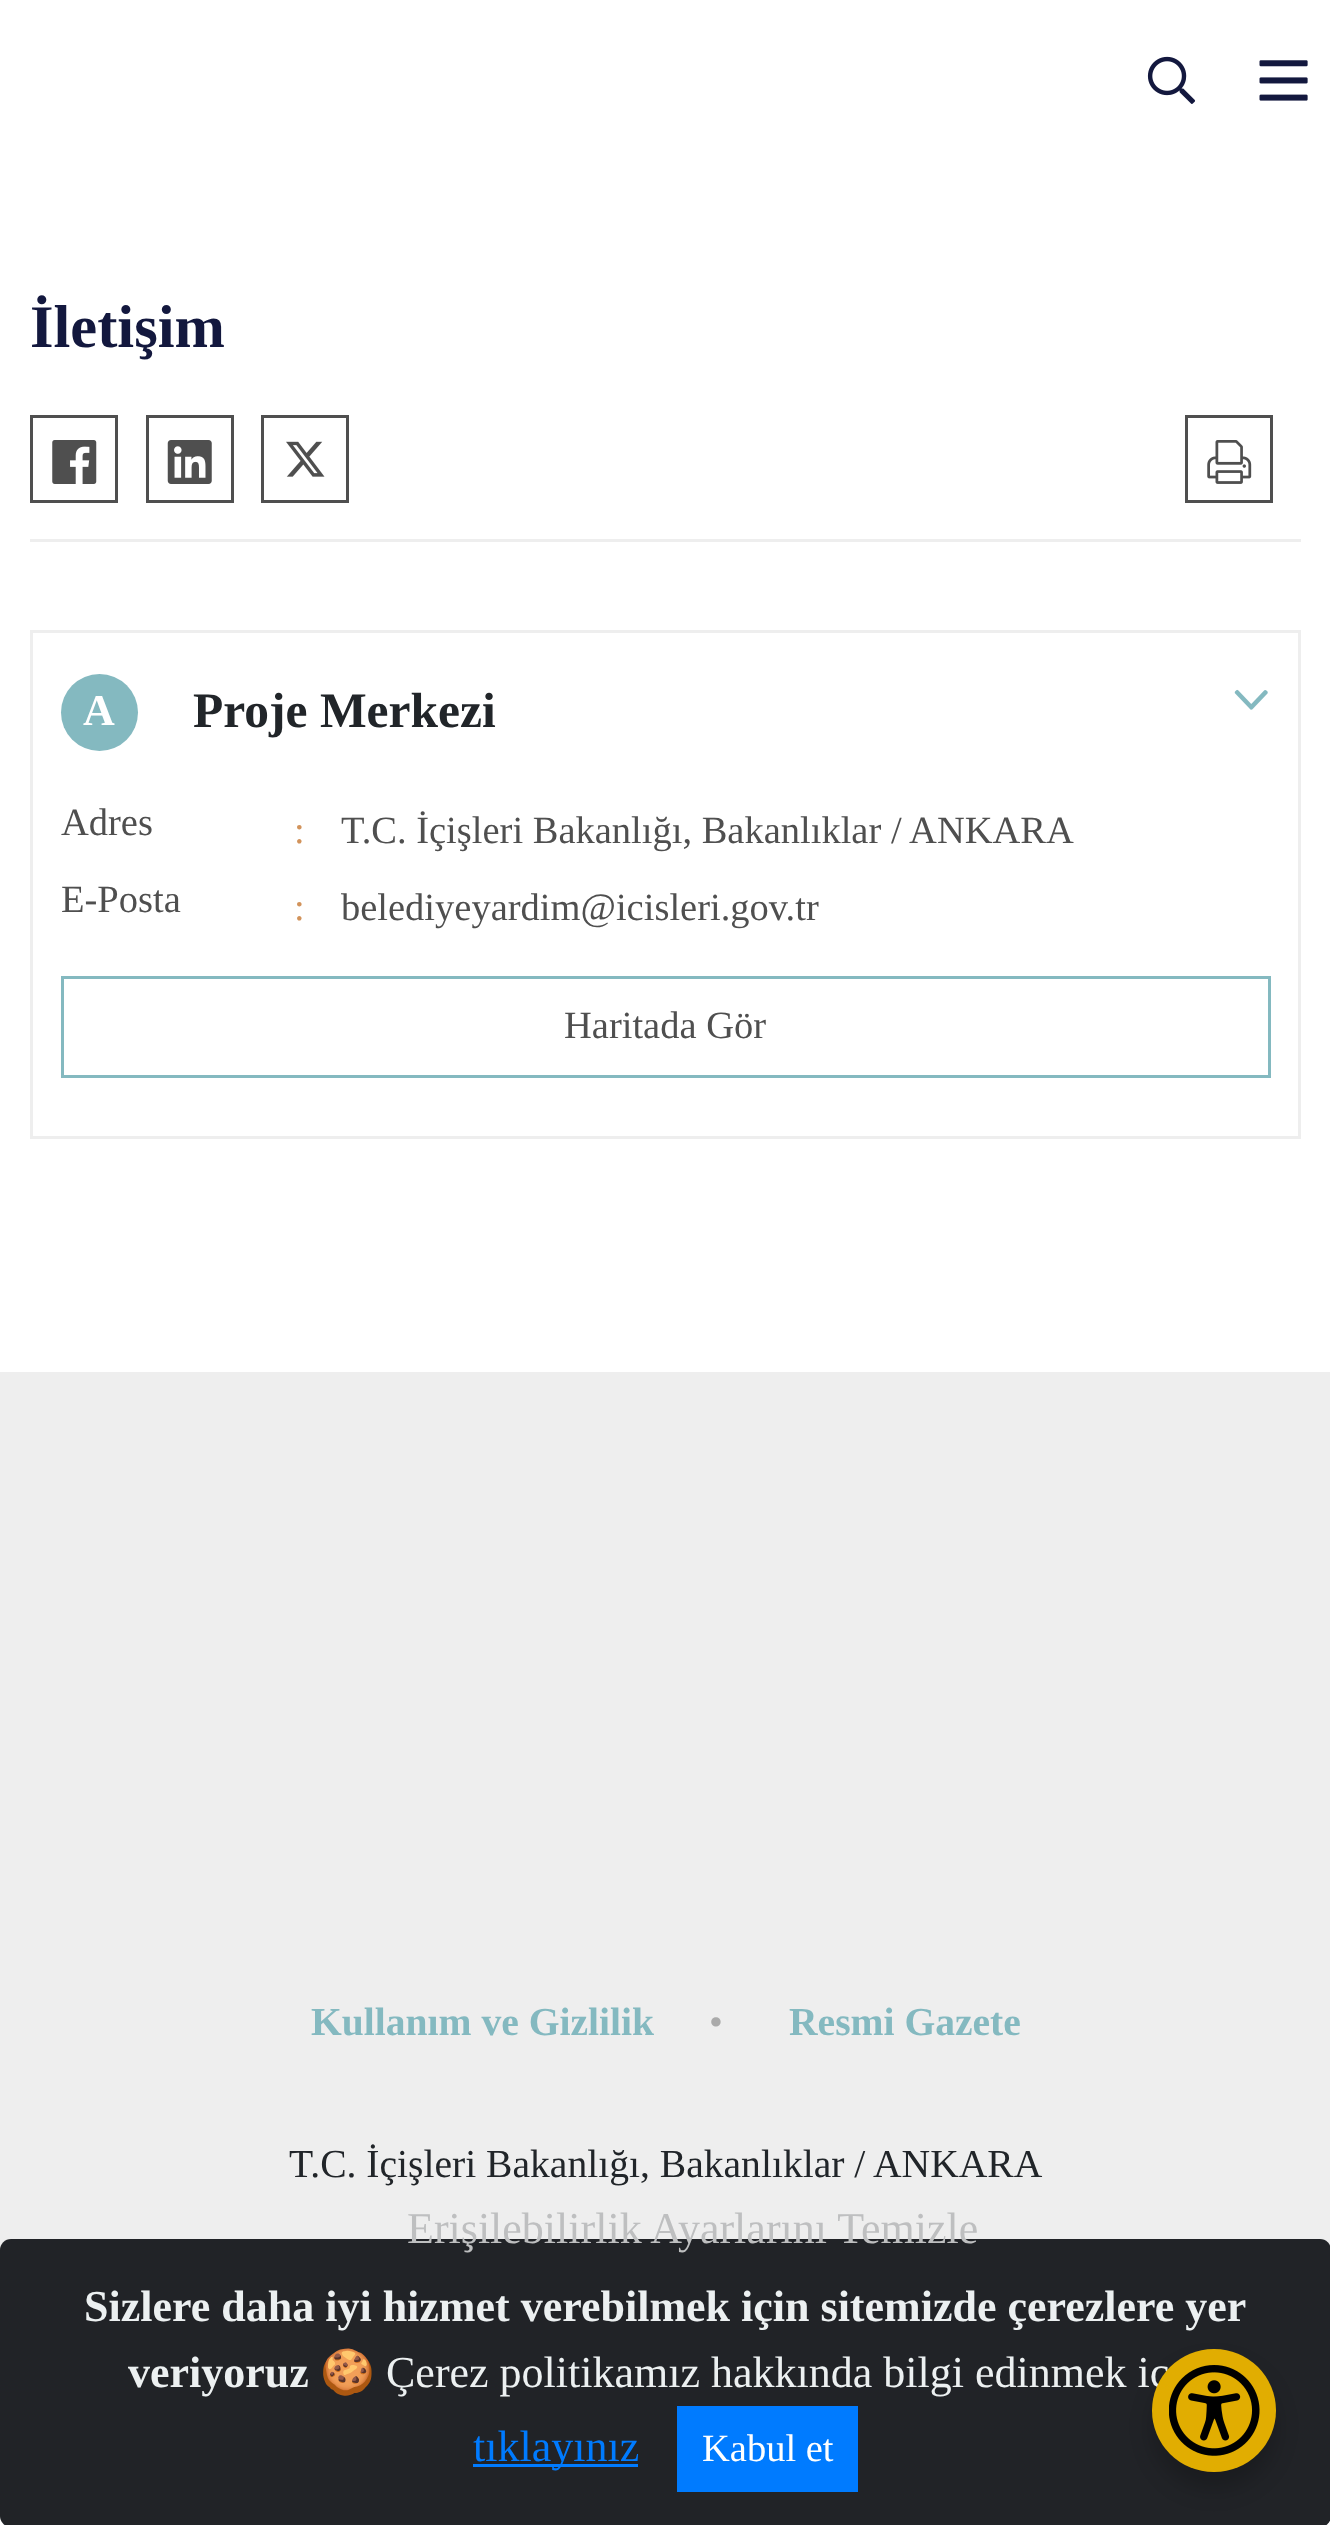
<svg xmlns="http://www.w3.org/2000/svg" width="1330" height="2525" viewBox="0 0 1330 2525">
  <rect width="100%" height="100%" fill="rgb(255,255,255)"/>
  <image x="1147" y="56" width="49" height="48" href="pic1.png"/>
  <image x="1259" y="60" width="49" height="41" href="pic2.png"/>
  <rect x="30" y="539" width="1271" height="3" fill="rgb(238,238,238)"/>
  <text x="30" y="347" font-family="Liberation Serif" font-size="60.5" font-weight="bold" fill="rgb(19,24,62)">İletişim</text>
  <rect x="31.5" y="416.5" width="85" height="85" fill="none" stroke="rgb(79,79,79)" stroke-width="3"/>
  <image x="52" y="440" width="45" height="44" href="pic3.png"/>
  <rect x="147.5" y="416.5" width="85" height="85" fill="none" stroke="rgb(79,79,79)" stroke-width="3"/>
  <image x="167" y="440" width="45" height="44" href="pic4.png"/>
  <rect x="262.5" y="416.5" width="85" height="85" fill="none" stroke="rgb(79,79,79)" stroke-width="3"/>
  <image x="286" y="441" width="39" height="36" href="pic5.png"/>
  <rect x="1186.5" y="416.5" width="85" height="85" fill="none" stroke="rgb(79,79,79)" stroke-width="3"/>
  <image x="1207" y="440" width="45" height="44" href="pic6.png"/>
  <rect x="31.5" y="631.5" width="1268" height="506" fill="none" stroke="rgb(238,238,238)" stroke-width="3"/>
  <circle cx="99.5" cy="712.5" r="38.5" fill="rgb(132,185,192)"/>
  <text x="83" y="725" font-family="Liberation Serif" font-size="44" font-weight="bold" fill="rgb(255,255,255)">A</text>
  <text x="193" y="727" font-family="Liberation Serif" font-size="49.5" font-weight="bold" fill="rgb(33,37,41)">Proje Merkezi</text>
  <image x="1234" y="689" width="34" height="21" href="pic7.png"/>
  <text x="61" y="835" font-family="Liberation Serif" font-size="38.5" fill="rgb(79,79,79)">Adres</text>
  <text x="294" y="843" font-family="Liberation Serif" font-size="38.5" fill="rgb(210,147,91)">:</text>
  <g font-family="Liberation Serif" font-size="38.5" fill="rgb(79,79,79)">
    <text x="341" y="843">T.C. İçişleri Bakanlığı, Bakanlıklar / ANKARA</text>
    <text x="61" y="912">E-Posta</text>
  </g>
  <text x="294" y="920" font-family="Liberation Serif" font-size="38.5" fill="rgb(210,147,91)">:</text>
  <text x="341" y="920" font-family="Liberation Serif" font-size="38.5" fill="rgb(79,79,79)">belediyeyardim@icisleri.gov.tr</text>
  <rect x="62.5" y="977.5" width="1207" height="99" fill="none" stroke="rgb(132,185,192)" stroke-width="3"/>
  <text x="564" y="1038" font-family="Liberation Serif" font-size="38.5" fill="rgb(79,79,79)">Haritada Gör</text>
  <rect x="0" y="1372" width="1330" height="878" fill="rgb(238,238,238)"/>
  <text x="311" y="2035" font-family="Liberation Serif" font-size="39.6" font-weight="bold" fill="rgb(132,185,192)">Kullanım ve Gizlilik</text>
  <text x="709" y="2035" font-family="Liberation Serif" font-size="39.6" fill="rgb(170,170,170)">•</text>
  <text x="789" y="2035" font-family="Liberation Serif" font-size="39.6" font-weight="bold" fill="rgb(132,185,192)">Resmi Gazete</text>
  <text x="289" y="2177" font-family="Liberation Serif" font-size="39.6" fill="rgb(33,37,41)">T.C. İçişleri Bakanlığı, Bakanlıklar / ANKARA</text>
  <rect x="0" y="2239" width="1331" height="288" rx="11" fill="rgb(33,35,39)"/>
  <text x="407" y="2243" font-family="Liberation Serif" font-size="44" fill="rgb(190,191,192)">Erişilebilirlik Ayarlarını Temizle</text>
  <rect x="1152" y="2365" width="124" height="124" rx="62" fill="rgba(0,0,0,0.2)" filter="blur(11px)"/>
  <text x="386" y="2387" font-family="Liberation Serif" font-size="44" fill="rgb(236,240,241)">Çerez politikamız hakkında bilgi edinmek iç</text>
  <rect x="1152" y="2349" width="124" height="123" rx="61.5" fill="rgb(225,173,1)"/>
  <image x="1169" y="2365" width="91" height="91" href="pic8.png"/>
  <g font-family="Liberation Serif" font-size="44" font-weight="bold" fill="rgb(236,240,241)">
    <text x="84" y="2321">Sizlere daha iyi hizmet verebilmek için sitemizde çerezlere yer</text>
    <text x="128" y="2387">veriyoruz</text>
  </g>
  <text x="320" y="2387" font-family="Noto Color Emoji" font-size="44" fill="rgb(236,240,241)">🍪</text>
  <rect x="473" y="2464" width="165" height="3" fill="rgb(0,123,255)"/>
  <text x="473" y="2461" font-family="Liberation Serif" font-size="44" fill="rgb(0,123,255)">tıklayınız</text>
  <rect x="677" y="2406" width="181" height="86" fill="rgb(0,123,255)"/>
  <text x="702" y="2461" font-family="Liberation Serif" font-size="38.5" fill="rgb(255,255,255)">Kabul et</text>
</svg>
